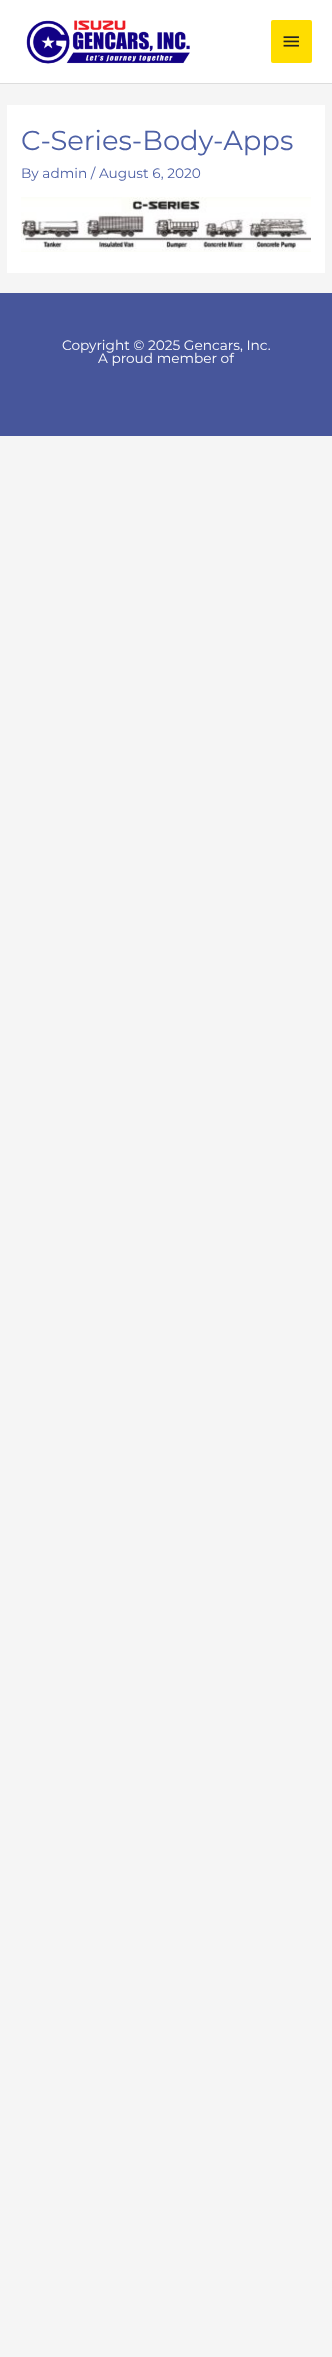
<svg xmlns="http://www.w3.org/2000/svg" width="332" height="2357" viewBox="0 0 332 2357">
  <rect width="100%" height="100%" fill="rgb(245,245,245)"/>
  <rect x="0" y="0" width="332" height="83" fill="rgb(255,255,255)"/>
  <rect x="0" y="83" width="332" height="1" fill="rgb(221,221,221)"/>
  <image x="26" y="20" width="164" height="44" href="pic1.png"/>
  <rect x="271" y="20" width="41" height="43" rx="2" fill="rgb(255,221,0)"/>
  <image x="283" y="36" width="16" height="11" href="pic2.png"/>
  <rect x="7" y="105" width="318" height="168" fill="rgb(255,255,255)"/>
  <text x="21" y="150" font-family="Montserrat" font-size="27.4" fill="rgb(77,96,165)">C-Series-Body-Apps</text>
  <text x="21" y="178" font-family="Montserrat" font-size="13.7" fill="rgb(77,96,165)">By admin / August 6, 2020</text>
  <image x="21" y="197" width="290" height="55" href="pic3.png"/>
  <rect x="0" y="293" width="332" height="143" fill="rgb(71,86,155)"/>
  <g font-family="Montserrat" font-size="13.7" fill="rgb(255,255,255)">
    <text x="62" y="350">Copyright © 2025 Gencars, Inc.</text>
    <text x="98" y="363">A proud member of</text>
  </g>
</svg>
